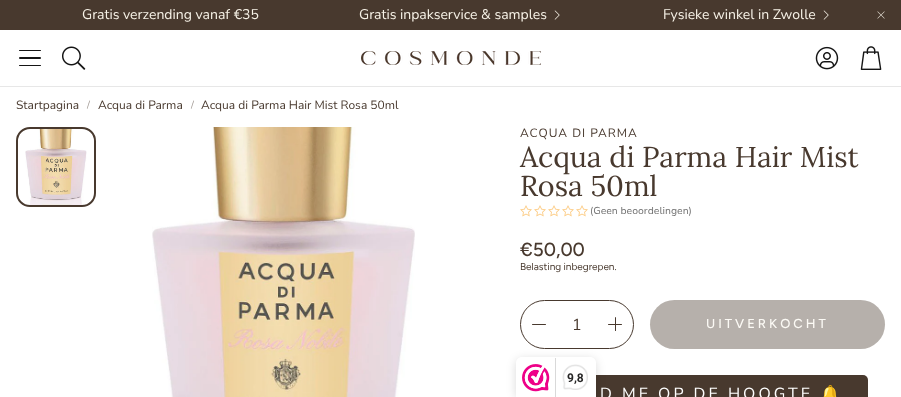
<svg xmlns="http://www.w3.org/2000/svg" width="901" height="397" viewBox="0 0 901 397">
  <rect width="100%" height="100%" fill="rgb(255,255,255)"/>
  <rect x="0" y="0" width="901" height="30" fill="rgb(72,57,46)"/>
  <g font-family="Nunito Sans" font-size="14" fill="rgb(247,242,231)">
    <text x="82" y="19">Gratis verzending vanaf €35</text>
    <text x="359" y="19">Gratis inpakservice &amp; samples</text>
  </g>
  <image x="554" y="10" width="6" height="10" href="pic1.png"/>
  <text x="663" y="19" font-family="Nunito Sans" font-size="14" fill="rgb(247,242,231)">Fysieke winkel in Zwolle</text>
  <image x="823" y="10" width="6" height="10" href="pic1.png"/>
  <image x="877" y="11" width="8" height="8" href="pic2.png"/>
  <rect x="0" y="86" width="901" height="1" fill="rgb(231,231,231)"/>
  <rect x="19" y="50" width="22" height="1" rx="0.5" fill="rgb(21,21,21)"/>
  <rect x="19" y="57" width="22" height="2" rx="1" fill="rgb(21,21,21)"/>
  <rect x="19" y="65" width="22" height="1" rx="0.5" fill="rgb(21,21,21)"/>
  <image x="62" y="46" width="24" height="24" href="pic3.png"/>
  <image x="361" y="51" width="180" height="14" href="pic4.png"/>
  <image x="815" y="46" width="24" height="24" href="pic5.png"/>
  <image x="860" y="46" width="22" height="24" href="pic6.png"/>
  <text x="16" y="109" font-family="Nunito Sans" font-size="12" fill="rgb(72,57,46)">Startpagina</text>
  <text x="87" y="108" font-family="'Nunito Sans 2'" font-size="10" fill="rgb(164,156,151)">/</text>
  <text x="98" y="109" font-family="Nunito Sans" font-size="12" fill="rgb(72,57,46)">Acqua di Parma</text>
  <text x="191" y="108" font-family="'Nunito Sans 2'" font-size="10" fill="rgb(164,156,151)">/</text>
  <text x="201" y="109" font-family="Nunito Sans" font-size="12" fill="rgb(72,57,46)">Acqua di Parma Hair Mist Rosa 50ml</text>
  <image x="25" y="127" width="62" height="80" href="pic7.png"/>
  <rect x="17" y="128" width="78" height="78" rx="13" fill="none" stroke="rgb(72,57,46)" stroke-width="2"/>
  <image x="152" y="127" width="263" height="270" href="pic8.png"/>
  <text x="520" y="137" font-family="Nunito Sans" font-size="12" letter-spacing="1" fill="rgb(72,57,46)">ACQUA DI PARMA</text>
  <g font-family="Lora" font-size="28.75" fill="rgb(72,57,46)">
    <text>
      <tspan x="520" y="167">Acqua di Parma Hair Mist</tspan>
      <tspan x="520" y="196">Rosa 50ml</tspan>
    </text>
  </g>
  <image x="520" y="205" width="12" height="12" href="pic9.png"/>
  <image x="534" y="205" width="12" height="12" href="pic9.png"/>
  <image x="548" y="205" width="12" height="12" href="pic9.png"/>
  <image x="562" y="205" width="12" height="12" href="pic9.png"/>
  <image x="576" y="205" width="12" height="12" href="pic9.png"/>
  <text x="590" y="214" font-family="'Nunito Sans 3'" font-size="10" fill="rgb(113,113,113)">(Geen beoordelingen)</text>
  <text x="520" y="256" font-family="Figtree" font-size="19" font-weight="500" fill="rgb(72,57,46)">€50,00</text>
  <text x="520" y="270" font-family="Figtree" font-size="10" fill="rgb(72,57,46)">Belasting inbegrepen.</text>
  <rect x="520.5" y="300.5" width="113" height="48" rx="24" fill="none" stroke="rgb(72,57,46)"/>
  <rect x="532" y="324" width="14" height="1" rx="0.5" fill="rgb(72,57,46)"/>
  <text x="572" y="330" font-family="Nunito Sans" font-size="16" fill="rgb(72,57,46)">1</text>
  <rect x="608" y="324" width="14" height="1" rx="0.5" fill="rgb(72,57,46)"/>
  <rect x="615" y="317" width="1" height="14" rx="0.5" fill="rgb(72,57,46)"/>
  <rect x="650" y="300" width="235" height="49" rx="24.5" fill="rgb(182,176,171)"/>
  <text x="706" y="328" font-family="Figtree" font-size="13" font-weight="500" letter-spacing="3" fill="rgb(252,250,245)">UITVERKOCHT</text>
  <rect x="530" y="375" width="338" height="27" rx="5" fill="rgb(72,57,46)"/>
  <text x="600" y="399" font-family="Nunito Sans" font-size="16" letter-spacing="3" fill="rgb(255,255,255)">D ME OP DE HOOGTE</text>
  <text x="820" y="399" font-family="Noto Color Emoji" font-size="16" letter-spacing="3" fill="rgb(255,255,255)">🔔</text>
  <rect x="516" y="359" width="80" height="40" rx="6" fill="rgba(0,0,0,0.15)" filter="blur(5px)"/>
  <path d="M522 357H590C593.5 357 596 359.5 596 363V397H516V363C516 359.5 518.5 357 522 357Z" fill="rgb(255,255,255)"/>
  <image x="522" y="364" width="28" height="28" href="pic10.png"/>
  <rect x="555" y="358" width="1" height="39" fill="rgb(217,217,217)"/>
  <image x="562" y="364" width="26" height="26" href="pic11.png"/>
  <text x="567" y="382" font-family="Roboto" font-size="12" font-weight="bold" fill="rgb(39,38,38)">9,8</text>
</svg>
